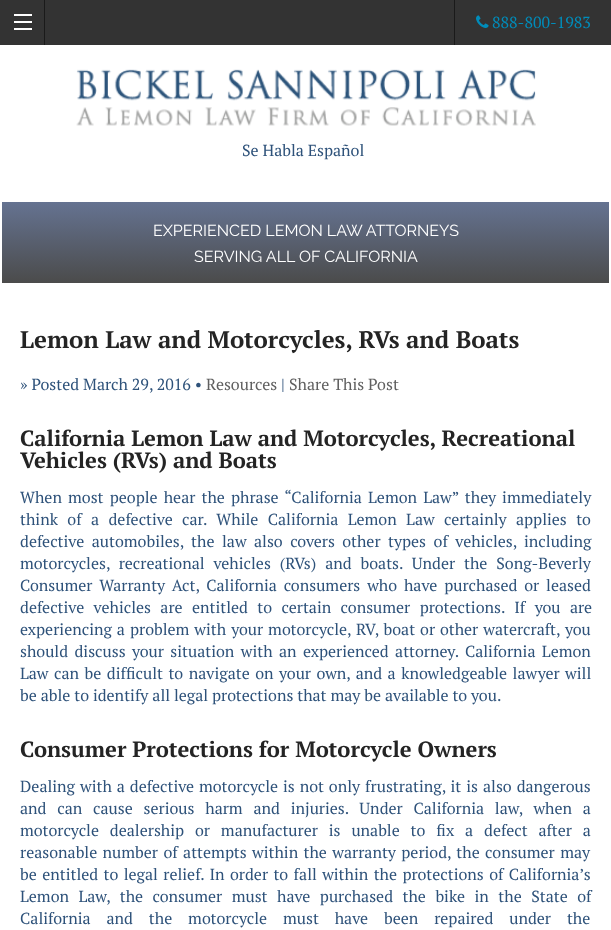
<svg xmlns="http://www.w3.org/2000/svg" width="611" height="930" viewBox="0 0 611 930">
  <defs>
    <linearGradient id="g1" gradientUnits="userSpaceOnUse" x1="306" y1="202" x2="306" y2="283"><stop offset="0" stop-color="rgb(101,115,145)"/><stop offset="1" stop-color="rgb(75,75,75)"/></linearGradient>
  </defs>
  <rect width="100%" height="100%" fill="rgb(255,255,255)"/>
  <rect x="0" y="0" width="611" height="45" fill="rgb(51,51,51)"/>
  <rect x="44" y="0" width="1" height="45" fill="rgb(26,26,26)"/>
  <rect x="14" y="28" width="18" height="2" fill="rgb(255,255,255)"/>
  <rect x="14" y="21" width="18" height="2" fill="rgb(255,255,255)"/>
  <rect x="14" y="14" width="18" height="2" fill="rgb(255,255,255)"/>
  <rect x="454" y="0" width="1" height="45" fill="rgb(26,26,26)"/>
  <image x="476" y="15" width="13" height="13" href="pic1.png"/>
  <text x="492" y="28" font-family="PT Serif" font-size="16" fill="rgb(0,140,186)">888-800-1983</text>
  <image x="76" y="69" width="460" height="57" href="pic2.png"/>
  <text x="242" y="156" font-family="PT Serif" font-size="16" fill="rgb(46,82,122)">Se Habla Español</text>
  <rect x="2" y="202" width="607" height="81" fill="url(#g1)"/>
  <g font-family="Raleway" font-size="16" fill="rgb(255,255,255)">
    <text x="153" y="236">EXPERIENCED LEMON LAW ATTORNEYS</text>
    <text x="194" y="262">SERVING ALL OF CALIFORNIA</text>
  </g>
  <text x="20" y="348" font-family="PT Serif" font-size="24" font-weight="bold" fill="rgb(36,36,36)">Lemon Law and Motorcycles, RVs and Boats</text>
  <text x="20" y="390" font-family="PT Serif" font-size="16" fill="rgb(46,82,122)">» Posted March 29, 2016 •</text>
  <text x="206" y="390" font-family="PT Serif" font-size="16" fill="rgb(96,96,96)">Resources</text>
  <text x="281" y="390" font-family="PT Serif" font-size="16" fill="rgb(46,82,122)">|</text>
  <text x="289" y="390" font-family="PT Serif" font-size="16" fill="rgb(96,96,96)">Share This Post</text>
  <g font-family="PT Serif" font-size="22" font-weight="bold" fill="rgb(36,36,36)">
    <text>
      <tspan x="20" y="446">California Lemon Law and Motorcycles, Recreational</tspan>
      <tspan x="20" y="468">Vehicles (RVs) and Boats</tspan>
    </text>
  </g>
  <g font-family="PT Serif" font-size="16" fill="rgb(46,82,122)">
    <text>
      <tspan x="20" y="503" word-spacing="2.25">When most people hear the phrase “California Lemon Law” they immediately</tspan>
      <tspan x="20" y="525" word-spacing="5.5">think of a defective car. While California Lemon Law certainly applies to</tspan>
      <tspan x="20" y="547" word-spacing="3.6">defective automobiles, the law also covers other types of vehicles, including</tspan>
      <tspan x="20" y="569" word-spacing="5">motorcycles, recreational vehicles (RVs) and boats. Under the Song-Beverly</tspan>
      <tspan x="20" y="591" word-spacing="3">Consumer Warranty Act, California consumers who have purchased or leased</tspan>
      <tspan x="20" y="613" word-spacing="5.5">defective vehicles are entitled to certain consumer protections. If you are</tspan>
      <tspan x="20" y="635" word-spacing="1.1">experiencing a problem with your motorcycle, RV, boat or other watercraft, you</tspan>
      <tspan x="20" y="657" word-spacing="2.5">should discuss your situation with an experienced attorney. California Lemon</tspan>
      <tspan x="20" y="679" word-spacing="1.6">Law can be difficult to navigate on your own, and a knowledgeable lawyer will</tspan>
      <tspan x="20" y="701">be able to identify all legal protections that may be available to you.</tspan>
    </text>
  </g>
  <text x="20" y="757" font-family="PT Serif" font-size="22" font-weight="bold" fill="rgb(36,36,36)">Consumer Protections for Motorcycle Owners</text>
  <g font-family="PT Serif" font-size="16" fill="rgb(46,82,122)">
    <text>
      <tspan x="20" y="792" word-spacing="1.1">Dealing with a defective motorcycle is not only frustrating, it is also dangerous</tspan>
      <tspan x="20" y="814" word-spacing="6.9">and can cause serious harm and injuries. Under California law, when a</tspan>
      <tspan x="20" y="836" word-spacing="7">motorcycle dealership or manufacturer is unable to fix a defect after a</tspan>
      <tspan x="20" y="858" word-spacing="1.5">reasonable number of attempts within the warranty period, the consumer may</tspan>
      <tspan x="20" y="880" word-spacing="1.5">be entitled to legal relief. In order to fall within the protections of California’s</tspan>
      <tspan x="20" y="902" word-spacing="5.6">Lemon Law, the consumer must have purchased the bike in the State of</tspan>
      <tspan x="20" y="924" word-spacing="12">California and the motorcycle must have been repaired under the</tspan>
    </text>
  </g>
</svg>
